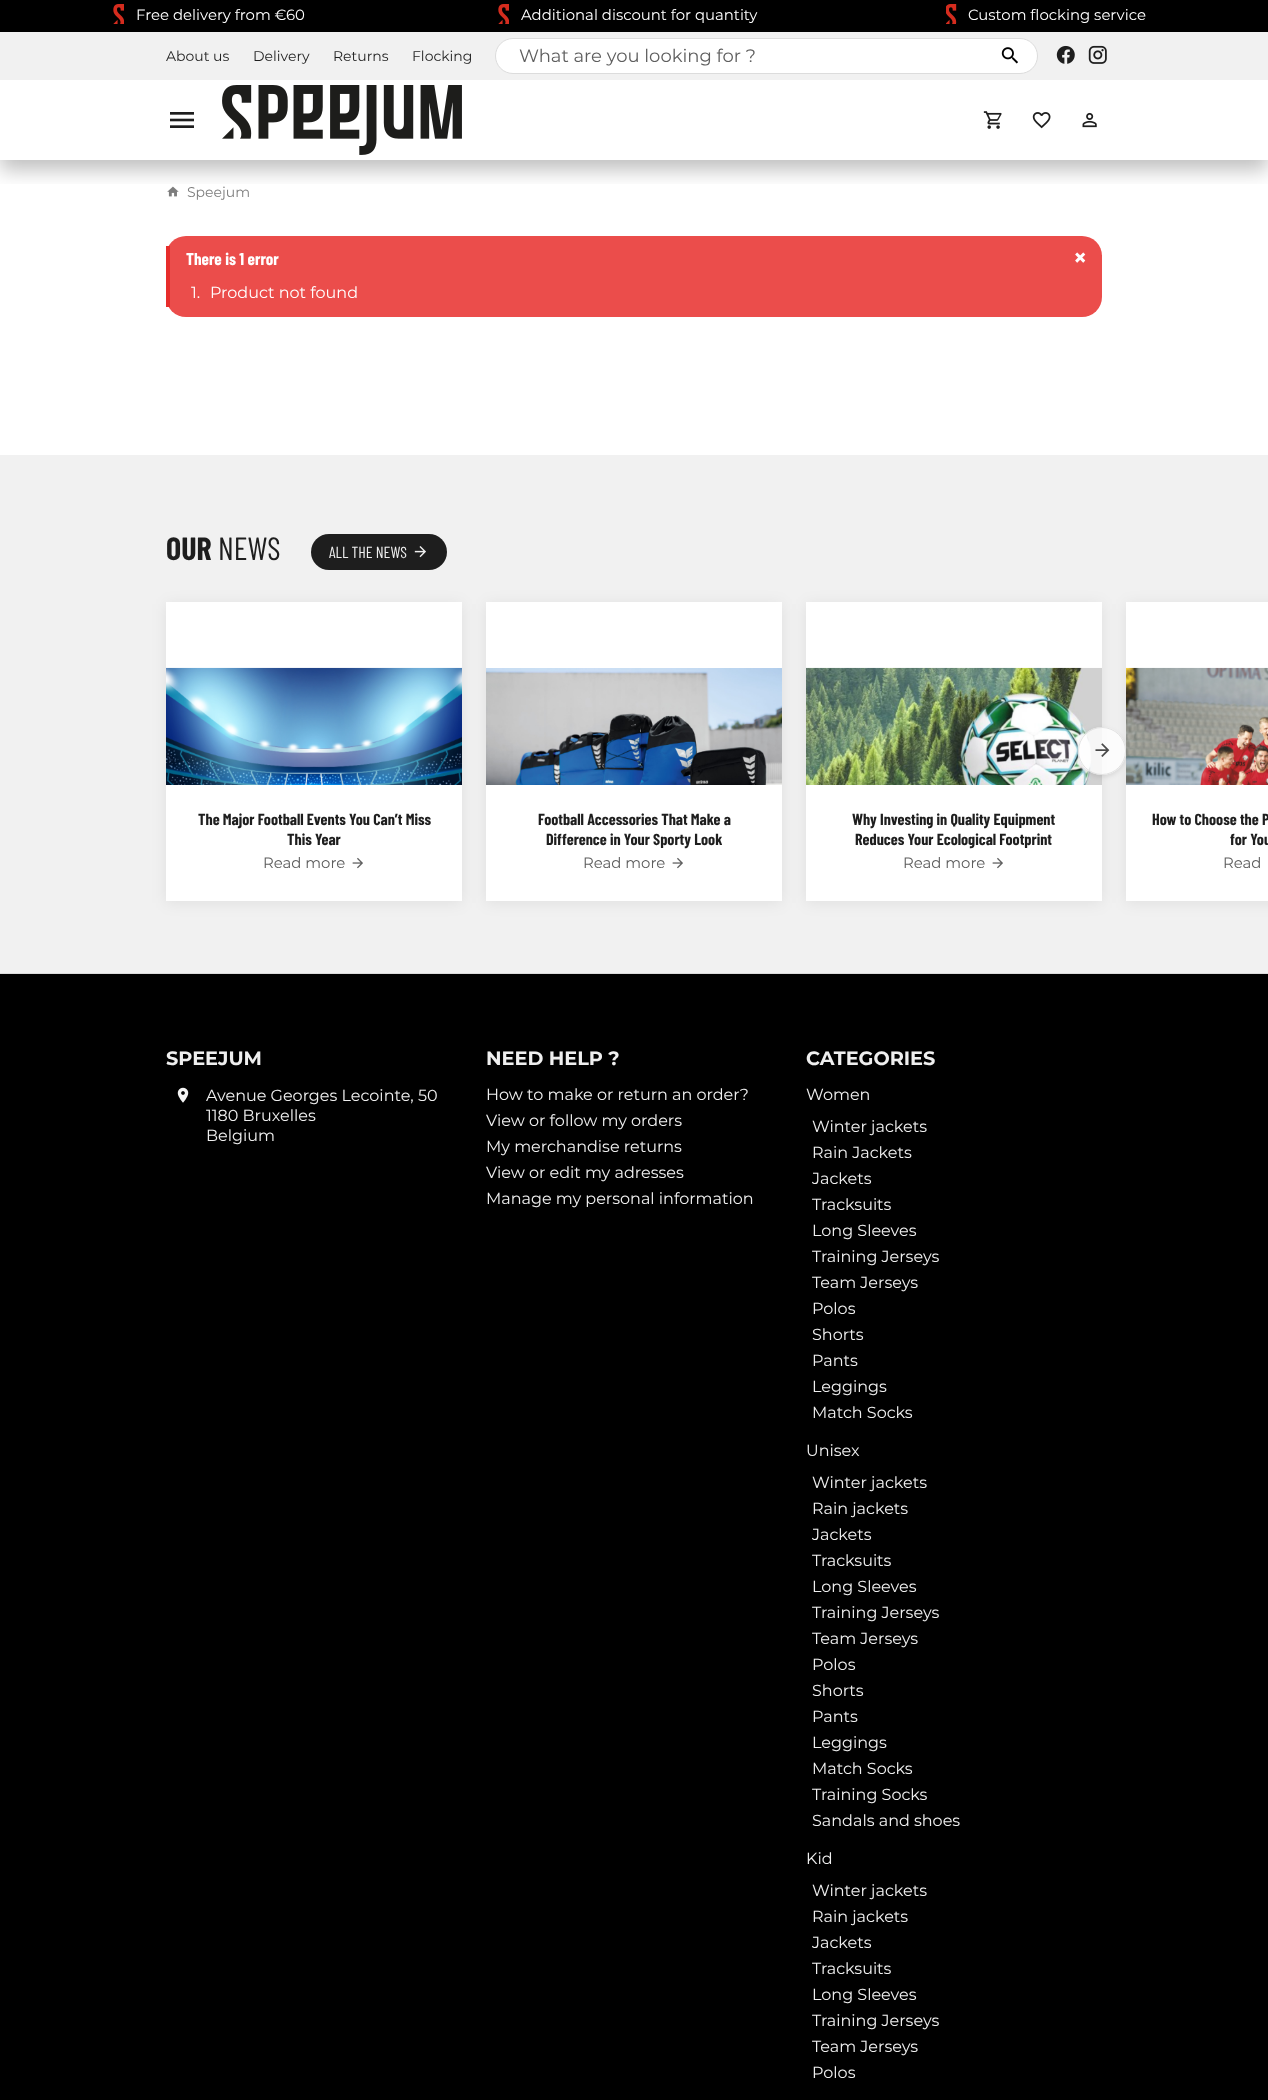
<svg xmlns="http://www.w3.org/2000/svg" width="1268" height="2100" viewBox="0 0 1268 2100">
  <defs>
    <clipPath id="clip1"><rect x="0" y="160" width="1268" height="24"/></clipPath>
    <clipPath id="clip2"><path d="M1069 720H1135V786H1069ZM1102 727C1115.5 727 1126 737.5 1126 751C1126 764.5 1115.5 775 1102 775C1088.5 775 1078 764.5 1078 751C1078 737.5 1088.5 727 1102 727Z" clip-rule="evenodd"/></clipPath>
  </defs>
  <rect width="100%" height="100%" fill="rgb(255,255,255)"/>
  <rect x="0" y="0" width="1268" height="32" fill="rgb(0,0,0)"/>
  <image x="113" y="4" width="11" height="20" href="pic1.png"/>
  <text x="136" y="20" font-family="Montserrat" font-size="14.9" fill="rgb(255,255,255)">Free delivery from €60</text>
  <image x="498" y="4" width="11" height="20" href="pic1.png"/>
  <text x="521" y="20" font-family="Montserrat" font-size="14.9" fill="rgb(255,255,255)">Additional discount for quantity</text>
  <image x="946" y="4" width="11" height="20" href="pic2.png"/>
  <text x="968" y="20" font-family="Montserrat" font-size="14.9" fill="rgb(255,255,255)">Custom flocking service</text>
  <image x="167" y="186" width="12" height="11" href="pic11.png"/>
  <g clip-path="url(#clip1)">
    <rect x="0" y="90" width="1268" height="80" fill="rgba(0,0,0,0.25)" filter="blur(10px)"/>
  </g>
  <rect x="0" y="32" width="1268" height="48" fill="rgb(241,241,241)"/>
  <g font-family="Montserrat" font-size="14" fill="rgb(30,30,30)">
    <text x="166" y="61">About us</text>
    <text x="253" y="61">Delivery</text>
    <text x="333" y="61">Returns</text>
    <text x="412" y="61">Flocking</text>
  </g>
  <rect x="495.5" y="38.5" width="542" height="35" rx="17.5" fill="rgb(255,255,255)" stroke="rgb(220,220,220)"/>
  <text x="519" y="62" font-family="Montserrat" font-size="18" fill="rgb(94,94,94)">What are you looking for ?</text>
  <image x="1001" y="47" width="17" height="17" href="pic3.png"/>
  <image x="1056" y="45" width="19" height="19" href="pic4.png"/>
  <image x="1088" y="45" width="19" height="19" href="pic5.png"/>
  <image x="170" y="112" width="24" height="16" href="pic6.png"/>
  <image x="222" y="85" width="240" height="70" href="pic7.png"/>
  <image x="983" y="111" width="19" height="18" href="pic8.png"/>
  <image x="1032" y="112" width="19" height="17" href="pic9.png"/>
  <image x="1082" y="112" width="15" height="16" href="pic10.png"/>
  <text x="187" y="197" font-family="Montserrat" font-size="14" fill="rgb(125,125,125)">Speejum</text>
  <rect x="166" y="236" width="936" height="81" rx="20" fill="rgb(235,77,75)"/>
  <rect x="166" y="246" width="4" height="61" fill="rgb(231,45,43)"/>
  <text x="186" y="265" font-family="Barlow Condensed" font-size="17" font-weight="bold" fill="rgb(255,255,255)">There is 1 error</text>
  <text x="1073" y="266" font-family="Montserrat" font-size="24" font-weight="bold" fill="rgb(255,255,255)">×</text>
  <text x="191" y="298" font-family="Montserrat" font-size="16" fill="rgb(255,255,255)">1.</text>
  <text x="210" y="298" font-family="Montserrat" font-size="16" fill="rgb(255,255,255)">Product not found</text>
  <rect x="0" y="455" width="1268" height="518" fill="rgb(241,241,241)"/>
  <text x="166" y="560" font-family="Barlow Condensed" font-size="32" font-weight="bold" fill="rgb(30,30,30)">OUR</text>
  <text x="218" y="560" font-family="Barlow Condensed" font-size="32" fill="rgb(30,30,30)">NEWS</text>
  <rect x="311" y="534" width="136" height="36" rx="18" fill="rgb(30,30,30)"/>
  <text x="329" y="558" font-family="Barlow Condensed" font-size="16" fill="rgb(239,239,239)">ALL THE NEWS</text>
  <image x="414" y="546" width="12" height="12" href="pic12.png"/>
  <rect x="806" y="604" width="296" height="299" fill="rgba(0,0,0,0.07)" filter="blur(7.5px)"/>
  <rect x="806" y="602" width="296" height="299" fill="rgb(255,255,255)"/>
  <image x="806" y="667" width="296" height="118" href="pic17.png"/>
  <rect x="1126" y="604" width="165" height="299" fill="rgba(0,0,0,0.07)" filter="blur(7.5px)"/>
  <rect x="1126" y="602" width="142" height="299" fill="rgb(255,255,255)"/>
  <image x="1126" y="667" width="142" height="118" href="pic18.png"/>
  <g clip-path="url(#clip2)">
    <rect x="1078" y="729" width="48" height="48" rx="24" fill="rgba(0,0,0,0.1)" filter="blur(2.5px)"/>
  </g>
  <circle cx="1102" cy="751" r="24" fill="rgba(255,255,255,0.8)"/>
  <circle cx="1102" cy="751" r="23.5" fill="none" stroke="rgba(220,220,220,0.8)"/>
  <image x="1095" y="743" width="15" height="14" href="pic13.png"/>
  <rect x="166" y="604" width="296" height="299" fill="rgba(0,0,0,0.07)" filter="blur(7.5px)"/>
  <rect x="166" y="602" width="296" height="299" fill="rgb(255,255,255)"/>
  <image x="166" y="667" width="296" height="118" href="pic14.png"/>
  <g font-family="Barlow Condensed" font-size="16" font-weight="bold" fill="rgb(30,30,30)">
    <text x="198" y="825">The Major Football Events You Can’t Miss</text>
    <text x="287" y="845">This Year</text>
  </g>
  <text x="263" y="868" font-family="Montserrat" font-size="14.9" fill="rgb(94,94,94)">Read more</text>
  <image x="352" y="857" width="11" height="12" href="pic15.png"/>
  <rect x="486" y="604" width="296" height="299" fill="rgba(0,0,0,0.07)" filter="blur(7.5px)"/>
  <rect x="486" y="602" width="296" height="299" fill="rgb(255,255,255)"/>
  <image x="486" y="668" width="296" height="117" href="pic16.png"/>
  <g font-family="Barlow Condensed" font-size="16" font-weight="bold" fill="rgb(30,30,30)">
    <text x="538" y="825">Football Accessories That Make a</text>
    <text x="546" y="845">Difference in Your Sporty Look</text>
  </g>
  <text x="583" y="868" font-family="Montserrat" font-size="14.9" fill="rgb(94,94,94)">Read more</text>
  <image x="672" y="857" width="11" height="12" href="pic15.png"/>
  <g font-family="Barlow Condensed" font-size="16" font-weight="bold" fill="rgb(30,30,30)">
    <text x="852" y="825">Why Investing in Quality Equipment</text>
    <text x="855" y="845">Reduces Your Ecological Footprint</text>
  </g>
  <text x="903" y="868" font-family="Montserrat" font-size="14.9" fill="rgb(94,94,94)">Read more</text>
  <image x="992" y="857" width="11" height="12" href="pic15.png"/>
  <g font-family="Barlow Condensed" font-size="16" font-weight="bold" fill="rgb(30,30,30)">
    <text x="1152" y="825">How to Choose the P</text>
    <text x="1230" y="845">for You</text>
  </g>
  <text x="1223" y="868" font-family="Montserrat" font-size="14.9" fill="rgb(94,94,94)">Read</text>
  <rect x="0" y="974" width="1268" height="1126" fill="rgb(0,0,0)"/>
  <rect x="0" y="973" width="1268" height="1" fill="rgb(220,220,220)"/>
  <text x="166" y="1065" font-family="Montserrat" font-size="19.25" font-weight="bold" fill="rgb(239,239,239)">SPEEJUM</text>
  <image x="177" y="1087" width="12" height="16" href="pic19.png"/>
  <g font-family="Montserrat" font-size="16" fill="rgb(239,239,239)">
    <text>
      <tspan x="206" y="1101">Avenue Georges Lecointe, 50</tspan>
      <tspan x="206" y="1121">1180 Bruxelles</tspan>
      <tspan x="206" y="1141">Belgium</tspan>
    </text>
  </g>
  <text x="486" y="1065" font-family="Montserrat" font-size="19.25" font-weight="bold" fill="rgb(239,239,239)">NEED HELP ?</text>
  <g font-family="Montserrat" font-size="16" fill="rgb(239,239,239)">
    <text>
      <tspan x="486" y="1100">How to make or return an order?</tspan>
      <tspan x="486" y="1126">View or follow my orders</tspan>
      <tspan x="486" y="1152">My merchandise returns</tspan>
      <tspan x="486" y="1178">View or edit my adresses</tspan>
      <tspan x="486" y="1204">Manage my personal information</tspan>
    </text>
  </g>
  <text x="806" y="1065" font-family="Montserrat" font-size="19.25" font-weight="bold" fill="rgb(239,239,239)">CATEGORIES</text>
  <g font-family="Montserrat" font-size="16" fill="rgb(239,239,239)">
    <text x="806" y="1100">Women</text>
    <text>
      <tspan x="812" y="1132">Winter jackets</tspan>
      <tspan x="812" y="1158">Rain Jackets</tspan>
      <tspan x="812" y="1184">Jackets</tspan>
      <tspan x="812" y="1210">Tracksuits</tspan>
      <tspan x="812" y="1236">Long Sleeves</tspan>
      <tspan x="812" y="1262">Training Jerseys</tspan>
      <tspan x="812" y="1288">Team Jerseys</tspan>
      <tspan x="812" y="1314">Polos</tspan>
      <tspan x="812" y="1340">Shorts</tspan>
      <tspan x="812" y="1366">Pants</tspan>
      <tspan x="812" y="1392">Leggings</tspan>
      <tspan x="812" y="1418">Match Socks</tspan>
    </text>
    <text x="806" y="1456">Unisex</text>
    <text>
      <tspan x="812" y="1488">Winter jackets</tspan>
      <tspan x="812" y="1514">Rain jackets</tspan>
      <tspan x="812" y="1540">Jackets</tspan>
      <tspan x="812" y="1566">Tracksuits</tspan>
      <tspan x="812" y="1592">Long Sleeves</tspan>
      <tspan x="812" y="1618">Training Jerseys</tspan>
      <tspan x="812" y="1644">Team Jerseys</tspan>
      <tspan x="812" y="1670">Polos</tspan>
      <tspan x="812" y="1696">Shorts</tspan>
      <tspan x="812" y="1722">Pants</tspan>
      <tspan x="812" y="1748">Leggings</tspan>
      <tspan x="812" y="1774">Match Socks</tspan>
      <tspan x="812" y="1800">Training Socks</tspan>
      <tspan x="812" y="1826">Sandals and shoes</tspan>
    </text>
    <text x="806" y="1864">Kid</text>
    <text>
      <tspan x="812" y="1896">Winter jackets</tspan>
      <tspan x="812" y="1922">Rain jackets</tspan>
      <tspan x="812" y="1948">Jackets</tspan>
      <tspan x="812" y="1974">Tracksuits</tspan>
      <tspan x="812" y="2000">Long Sleeves</tspan>
      <tspan x="812" y="2026">Training Jerseys</tspan>
      <tspan x="812" y="2052">Team Jerseys</tspan>
      <tspan x="812" y="2078">Polos</tspan>
    </text>
  </g>
</svg>
